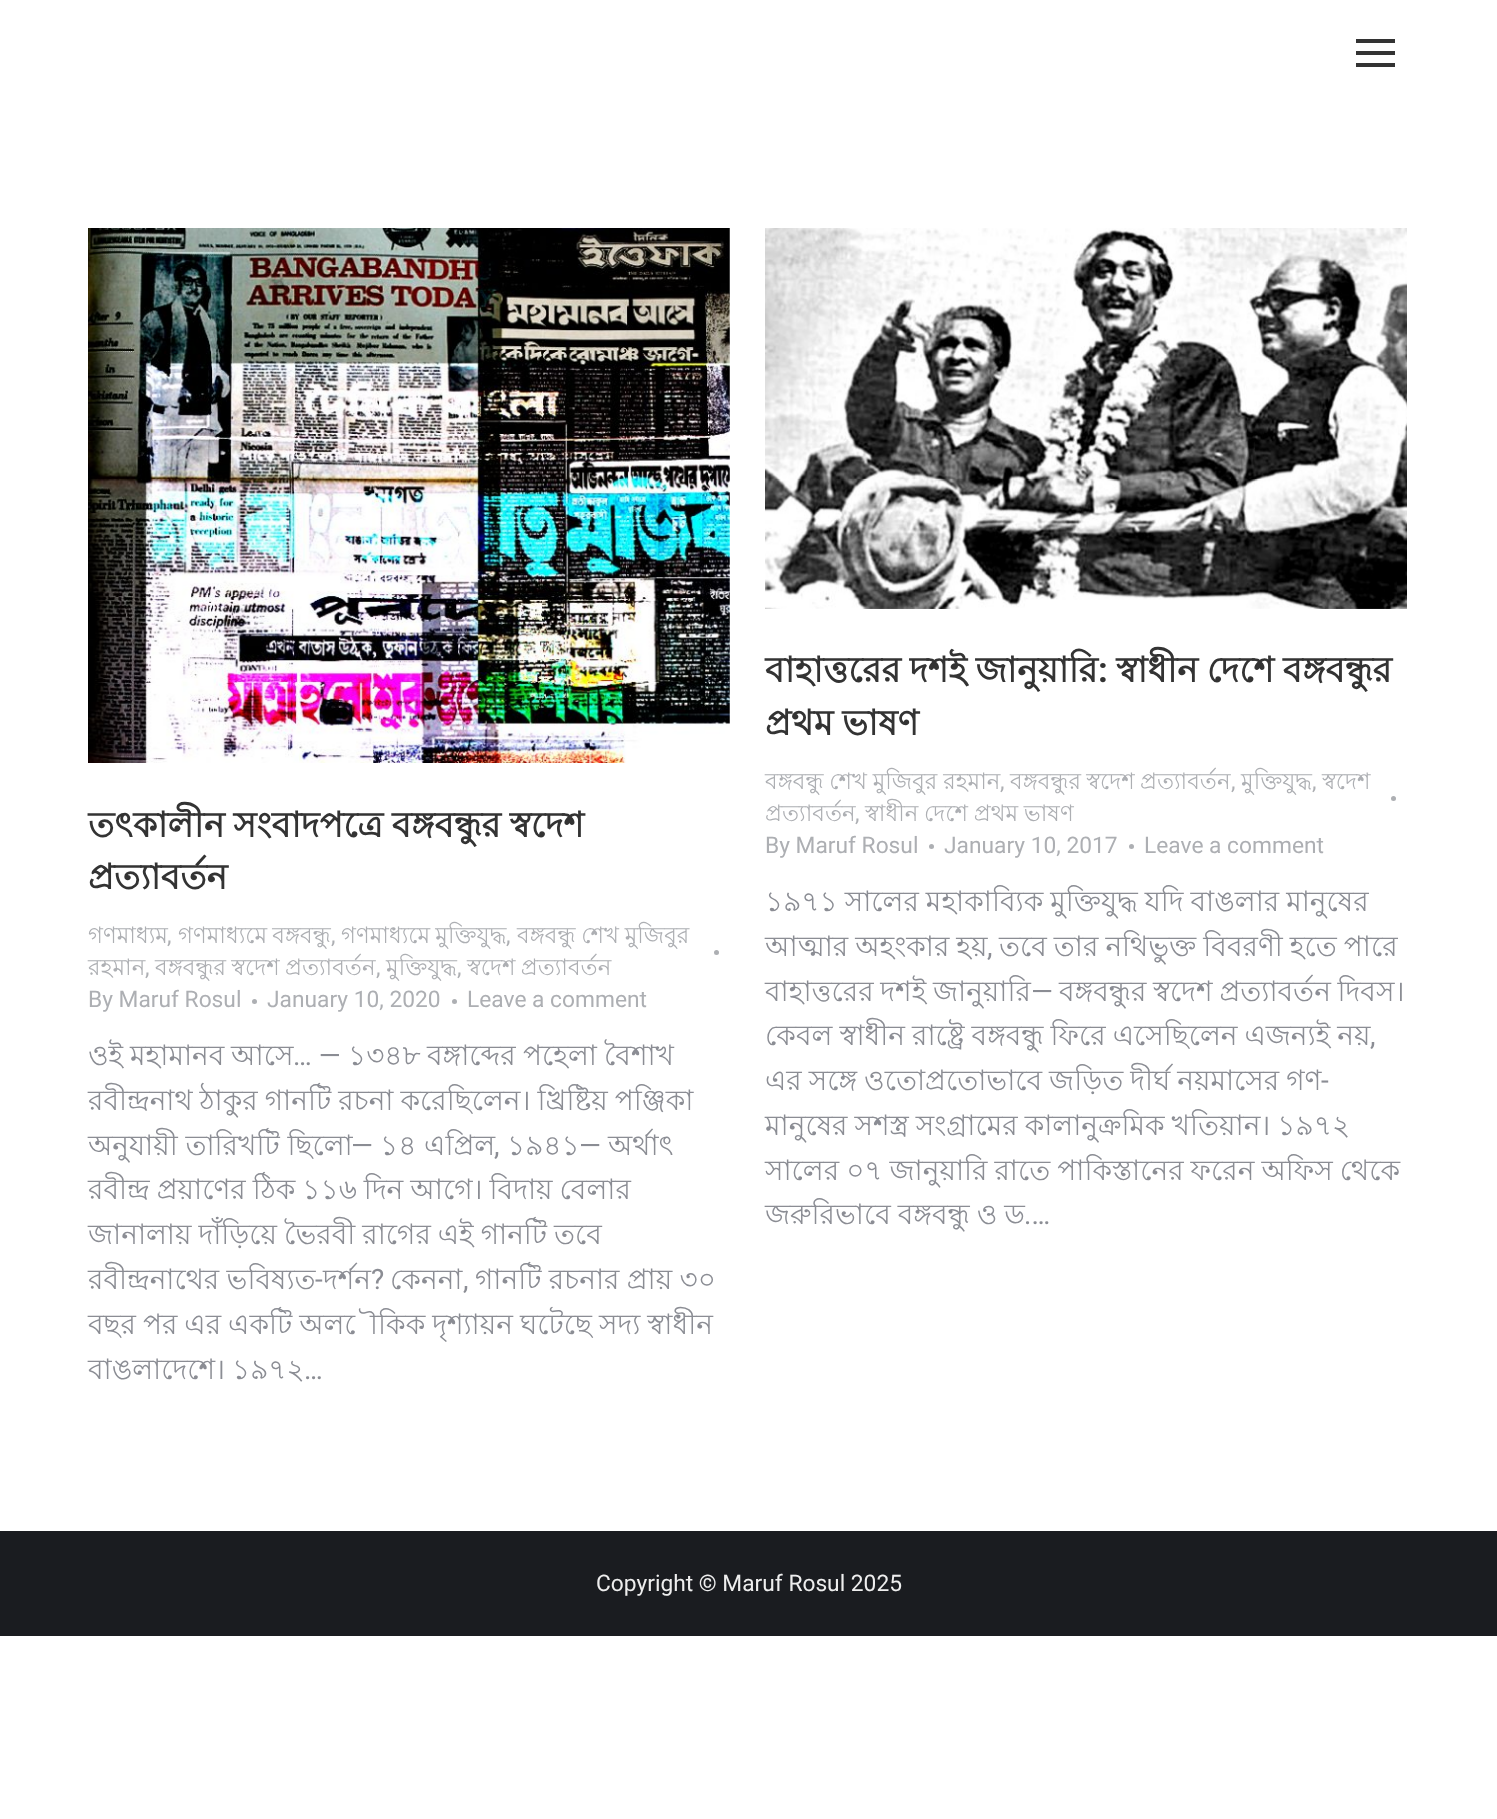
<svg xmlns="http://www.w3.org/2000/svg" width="1497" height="1819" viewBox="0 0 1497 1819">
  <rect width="100%" height="100%" fill="rgb(255,255,255)"/>
  <rect x="1356" y="39" width="39" height="4" fill="rgb(51,51,51)"/>
  <rect x="1356" y="51" width="39" height="4" fill="rgb(51,51,51)"/>
  <rect x="1356" y="63" width="39" height="4" fill="rgb(51,51,51)"/>
  <image x="88" y="228" width="642" height="535" href="pic1.png"/>
  <g font-family="Lohit Bengali" font-size="35" font-weight="bold" fill="rgb(51,51,51)">
    <text>
      <tspan x="88" y="837" word-spacing="-1">তৎকালীন সংবাদপত্রে বঙ্গবন্ধুর স্বদেশ</tspan>
      <tspan x="88" y="889">প্রত্যাবর্তন</tspan>
    </text>
  </g>
  <text x="88" y="943" font-family="Lohit Bengali" font-size="22.75" fill="rgb(173,175,179)">গণমাধ্যম</text>
  <text x="167" y="943" font-family="Roboto" font-size="22.75" fill="rgb(173,175,179)">,</text>
  <text x="178" y="943" word-spacing="-1" font-family="Lohit Bengali" font-size="22.75" fill="rgb(173,175,179)">গণমাধ্যমে বঙ্গবন্ধু</text>
  <text x="331" y="943" font-family="Roboto" font-size="22.75" fill="rgb(173,175,179)">,</text>
  <text x="341" y="943" word-spacing="-1" font-family="Lohit Bengali" font-size="22.75" fill="rgb(173,175,179)">গণমাধ্যমে মুক্তিযুদ্ধ</text>
  <text x="506" y="943" font-family="Roboto" font-size="22.75" fill="rgb(173,175,179)">,</text>
  <text x="517" y="943" word-spacing="-0.5" font-family="Lohit Bengali" font-size="22.75" fill="rgb(173,175,179)">বঙ্গবন্ধু শেখ মুজিবুর</text>
  <circle cx="716.5" cy="952.5" r="2.5" fill="rgb(173,175,179)"/>
  <text x="88" y="975" font-family="Lohit Bengali" font-size="22.75" fill="rgb(173,175,179)">রহমান</text>
  <text x="145" y="975" font-family="Roboto" font-size="22.75" fill="rgb(173,175,179)">,</text>
  <text x="155" y="975" word-spacing="-1" font-family="Lohit Bengali" font-size="22.75" fill="rgb(173,175,179)">বঙ্গবন্ধুর স্বদেশ প্রত্যাবর্তন</text>
  <text x="376" y="975" font-family="Roboto" font-size="22.75" fill="rgb(173,175,179)">,</text>
  <g font-family="Lohit Bengali" font-size="22.75" fill="rgb(173,175,179)">
    <text x="386" y="975">মুক্তিযুদ্ধ</text>
    <text x="467" y="975" word-spacing="-1">স্বদেশ প্রত্যাবর্তন</text>
  </g>
  <g font-family="Roboto" font-size="22.75" fill="rgb(173,175,179)">
    <text x="457" y="975">,</text>
    <text x="88" y="1007">By Maruf Rosul</text>
  </g>
  <circle cx="254.5" cy="1001.5" r="2.5" fill="rgb(173,175,179)"/>
  <text x="267" y="1007" font-family="Roboto" font-size="22.75" fill="rgb(173,175,179)">January 10, 2020</text>
  <circle cx="454.5" cy="1001.5" r="2.5" fill="rgb(173,175,179)"/>
  <text x="467" y="1007" font-family="Roboto" font-size="22.75" fill="rgb(173,175,179)">Leave a comment</text>
  <g font-family="Lohit Bengali" font-size="28" fill="rgb(139,141,148)">
    <text x="88" y="1065">ওই</text>
    <text x="130" y="1065">মহামানব</text>
    <text x="231" y="1065">আসে</text>
  </g>
  <text x="293" y="1065" font-family="Roboto" font-size="28" fill="rgb(139,141,148)">… —</text>
  <g font-family="Lohit Bengali" font-size="28" fill="rgb(139,141,148)">
    <text x="348" y="1065">১৩৪৮</text>
    <text x="427" y="1065">বঙ্গাব্দের</text>
    <text x="523" y="1065">পহেলা</text>
    <text x="604" y="1065">বৈশাখ</text>
    <text>
      <tspan x="88" y="1110" word-spacing="-0.75">রবীন্দ্রনাথ ঠাকুর গানটি রচনা করেছিলেন। খ্রিষ্টিয় পঞ্জিকা</tspan>
      <tspan x="88" y="1155">অনুযায়ী তারিখটি ছিলো</tspan>
    </text>
  </g>
  <text x="351" y="1155" font-family="Roboto" font-size="28" fill="rgb(139,141,148)">—</text>
  <g font-family="Lohit Bengali" font-size="28" fill="rgb(139,141,148)">
    <text x="380" y="1155">১৪ এপ্রিল</text>
    <text x="507" y="1155">১৯৪১</text>
  </g>
  <text x="579" y="1155" font-family="Roboto" font-size="28" fill="rgb(139,141,148)">—</text>
  <text x="608" y="1155" font-family="Lohit Bengali" font-size="28" fill="rgb(139,141,148)">অর্থাৎ</text>
  <text x="494" y="1155" font-family="Roboto" font-size="28" fill="rgb(139,141,148)">,</text>
  <g font-family="Lohit Bengali" font-size="28" fill="rgb(139,141,148)">
    <text>
      <tspan x="88" y="1199" word-spacing="-0.75">রবীন্দ্র প্রয়াণের ঠিক ১১৬ দিন আগে। বিদায় বেলার</tspan>
      <tspan x="88" y="1244" word-spacing="-0.75">জানালায় দাঁড়িয়ে ভৈরবী রাগের এই গানটি তবে</tspan>
      <tspan x="88" y="1289" word-spacing="-0.5">রবীন্দ্রনাথের ভবিষ্যত</tspan>
    </text>
  </g>
  <text x="315" y="1289" font-family="Roboto" font-size="28" fill="rgb(139,141,148)">-</text>
  <text x="323" y="1289" font-family="Lohit Bengali" font-size="28" fill="rgb(139,141,148)">দর্শন</text>
  <text x="371" y="1289" font-family="Roboto" font-size="28" fill="rgb(139,141,148)">?</text>
  <g font-family="Lohit Bengali" font-size="28" fill="rgb(139,141,148)">
    <text x="390" y="1289">কেননা</text>
    <text x="475" y="1289" word-spacing="-0.5">গানটি রচনার প্রায় ৩০</text>
  </g>
  <text x="463" y="1289" font-family="Roboto" font-size="28" fill="rgb(139,141,148)">,</text>
  <g font-family="Lohit Bengali" font-size="28" fill="rgb(139,141,148)">
    <text>
      <tspan x="88" y="1334" word-spacing="-0.75">বছর পর এর একটি অলৌকিক দৃশ্যায়ন ঘটেছে সদ্য স্বাধীন</tspan>
      <tspan x="88" y="1379" word-spacing="-0.75">বাঙলাদেশে। ১৯৭২</tspan>
    </text>
  </g>
  <text x="304" y="1379" font-family="Roboto" font-size="28" fill="rgb(139,141,148)">…</text>
  <image x="765" y="228" width="642" height="381" href="pic2.png"/>
  <text x="765" y="682" word-spacing="-1" font-family="Lohit Bengali" font-size="35" font-weight="bold" fill="rgb(51,51,51)">বাহাত্তরের দশই জানুয়ারি</text>
  <text x="1098" y="682" font-family="Roboto" font-size="35" font-weight="bold" fill="rgb(51,51,51)">:</text>
  <g font-family="Lohit Bengali" font-size="35" font-weight="bold" fill="rgb(51,51,51)">
    <text x="1116" y="682" word-spacing="-1">স্বাধীন দেশে বঙ্গবন্ধুর</text>
    <text x="765" y="735" word-spacing="-1">প্রথম ভাষণ</text>
  </g>
  <text x="765" y="789" word-spacing="-0.5" font-family="Lohit Bengali" font-size="22.75" fill="rgb(173,175,179)">বঙ্গবন্ধু শেখ মুজিবুর রহমান</text>
  <text x="1000" y="789" font-family="Roboto" font-size="22.75" fill="rgb(173,175,179)">,</text>
  <text x="1010" y="789" word-spacing="-1" font-family="Lohit Bengali" font-size="22.75" fill="rgb(173,175,179)">বঙ্গবন্ধুর স্বদেশ প্রত্যাবর্তন</text>
  <text x="1231" y="789" font-family="Roboto" font-size="22.75" fill="rgb(173,175,179)">,</text>
  <g font-family="Lohit Bengali" font-size="22.75" fill="rgb(173,175,179)">
    <text x="1241" y="789">মুক্তিযুদ্ধ</text>
    <text x="1322" y="789">স্বদেশ</text>
  </g>
  <text x="1312" y="789" font-family="Roboto" font-size="22.75" fill="rgb(173,175,179)">,</text>
  <text x="765" y="821" font-family="Lohit Bengali" font-size="22.75" fill="rgb(173,175,179)">প্রত্যাবর্তন</text>
  <text x="855" y="821" font-family="Roboto" font-size="22.75" fill="rgb(173,175,179)">,</text>
  <text x="865" y="821" word-spacing="-0.5" font-family="Lohit Bengali" font-size="22.75" fill="rgb(173,175,179)">স্বাধীন দেশে প্রথম ভাষণ</text>
  <circle cx="1393.5" cy="798.5" r="2.5" fill="rgb(173,175,179)"/>
  <text x="765" y="853" font-family="Roboto" font-size="22.75" fill="rgb(173,175,179)">By Maruf Rosul</text>
  <circle cx="931.5" cy="846.5" r="2.5" fill="rgb(173,175,179)"/>
  <text x="944" y="853" font-family="Roboto" font-size="22.75" fill="rgb(173,175,179)">January 10, 2017</text>
  <circle cx="1131.5" cy="846.5" r="2.5" fill="rgb(173,175,179)"/>
  <text x="1144" y="853" font-family="Roboto" font-size="22.75" fill="rgb(173,175,179)">Leave a comment</text>
  <g font-family="Lohit Bengali" font-size="28" fill="rgb(139,141,148)">
    <text>
      <tspan x="765" y="911" word-spacing="-0.75">১৯৭১ সালের মহাকাব্যিক মুক্তিযুদ্ধ যদি বাঙলার মানুষের</tspan>
      <tspan x="765" y="956" word-spacing="-0.75">আত্মার অহংকার হয়</tspan>
    </text>
  </g>
  <text x="987" y="956" font-family="Roboto" font-size="28" fill="rgb(139,141,148)">,</text>
  <g font-family="Lohit Bengali" font-size="28" fill="rgb(139,141,148)">
    <text x="999" y="956" word-spacing="-0.75">তবে তার নথিভুক্ত বিবরণী হতে পারে</text>
    <text x="765" y="1001" word-spacing="-1">বাহাত্তরের দশই জানুয়ারি</text>
  </g>
  <text x="1031" y="1001" font-family="Roboto" font-size="28" fill="rgb(139,141,148)">—</text>
  <g font-family="Lohit Bengali" font-size="28" fill="rgb(139,141,148)">
    <text x="1059" y="1001" word-spacing="-1">বঙ্গবন্ধুর স্বদেশ প্রত্যাবর্তন দিবস।</text>
    <text x="765" y="1045" word-spacing="-0.75">কেবল স্বাধীন রাষ্ট্রে বঙ্গবন্ধু ফিরে এসেছিলেন এজন্যই নয়</text>
  </g>
  <text x="1370" y="1045" font-family="Roboto" font-size="28" fill="rgb(139,141,148)">,</text>
  <text x="765" y="1090" word-spacing="-0.75" font-family="Lohit Bengali" font-size="28" fill="rgb(139,141,148)">এর সঙ্গে ওতোপ্রতোভাবে জড়িত দীর্ঘ নয়মাসের গণ</text>
  <text x="1321" y="1090" font-family="Roboto" font-size="28" fill="rgb(139,141,148)">-</text>
  <g font-family="Lohit Bengali" font-size="28" fill="rgb(139,141,148)">
    <text>
      <tspan x="765" y="1135" word-spacing="-0.75">মানুষের সশস্ত্র সংগ্রামের কালানুক্রমিক খতিয়ান। ১৯৭২</tspan>
      <tspan x="765" y="1180" word-spacing="-0.75">সালের ০৭ জানুয়ারি রাতে পাকিস্তানের ফরেন অফিস থেকে</tspan>
      <tspan x="765" y="1224" word-spacing="-0.75">জরুরিভাবে বঙ্গবন্ধু ও ড</tspan>
    </text>
  </g>
  <text x="1024" y="1224" font-family="Roboto" font-size="28" fill="rgb(139,141,148)">.…</text>
  <rect x="0" y="1531" width="1497" height="105" fill="rgb(26,28,32)"/>
  <text x="596" y="1591" font-family="Roboto" font-size="22.75" fill="rgb(238,238,238)">Copyright © Maruf Rosul 2025</text>
</svg>
